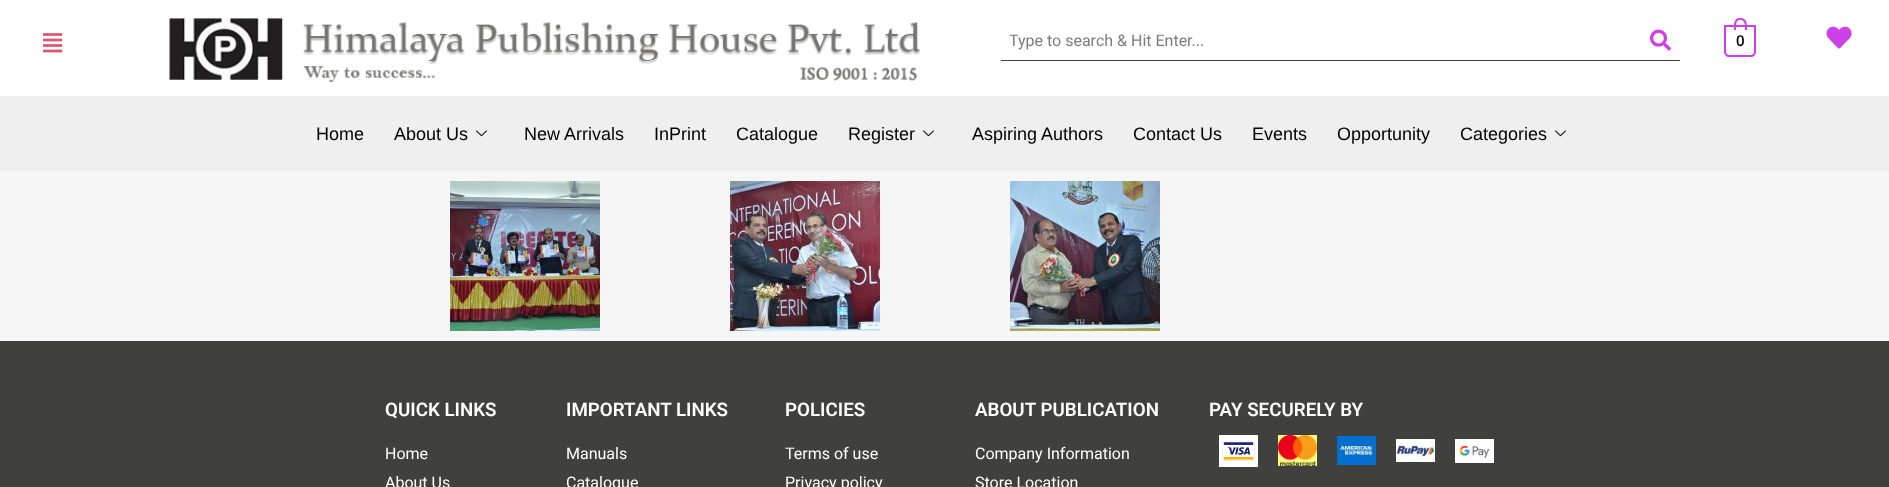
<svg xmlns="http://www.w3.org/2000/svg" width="1889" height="487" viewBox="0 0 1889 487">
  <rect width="100%" height="100%" fill="rgb(246,246,246)"/>
  <rect x="0" y="0" width="1889" height="96" fill="rgb(255,255,255)"/>
  <image x="43" y="33" width="20" height="20" href="pic1.png"/>
  <image x="169" y="18" width="752" height="64" href="pic2.png"/>
  <rect x="1001" y="60" width="679" height="1" fill="rgb(64,64,62)"/>
  <text x="1009" y="46" font-family="Roboto" font-size="16" fill="rgb(125,123,123)">Type to search &amp; Hit Enter...</text>
  <image x="1650" y="29" width="21" height="22" href="pic3.png"/>
  <path d="M1725 26H1755V52C1755 54 1753 56 1751 56H1729C1727 56 1725 54 1725 52Z" fill="none" stroke="rgb(205,64,230)" stroke-width="2"/>
  <path d="M1740.5 18C1747.5 18 1747 25 1747 30H1734C1734 25 1733 18 1740.5 18ZM1740.5 20C1745.5 20 1745 26.5 1745 30H1736C1736 26.5 1735 20 1740.5 20Z" fill="rgb(205,64,230)" fill-rule="evenodd"/>
  <text x="1736" y="46" font-family="Open Sans" font-size="15" font-weight="600" fill="rgb(0,0,0)">0</text>
  <image x="1826" y="26" width="26" height="23" href="pic4.png"/>
  <rect x="0" y="96" width="1889" height="75" fill="rgb(239,239,239)"/>
  <g font-family="Liberation Sans" font-size="18" fill="rgb(0,0,0)">
    <text x="316" y="140">Home</text>
    <text x="394" y="140">About Us</text>
  </g>
  <image x="476" y="130" width="11" height="7" href="pic5.png"/>
  <g font-family="Liberation Sans" font-size="18" fill="rgb(0,0,0)">
    <text x="524" y="140">New Arrivals</text>
    <text x="654" y="140">InPrint</text>
    <text x="736" y="140">Catalogue</text>
    <text x="848" y="140">Register</text>
  </g>
  <image x="923" y="130" width="11" height="7" href="pic5.png"/>
  <g font-family="Liberation Sans" font-size="18" fill="rgb(0,0,0)">
    <text x="972" y="140">Aspiring Authors</text>
    <text x="1133" y="140">Contact Us</text>
    <text x="1252" y="140">Events</text>
    <text x="1337" y="140">Opportunity</text>
    <text x="1460" y="140">Categories</text>
  </g>
  <image x="1555" y="130" width="11" height="7" href="pic5.png"/>
  <image x="450" y="181" width="150" height="150" href="pic6.png"/>
  <image x="730" y="181" width="150" height="150" href="pic7.png"/>
  <image x="1010" y="181" width="150" height="150" href="pic8.png"/>
  <rect x="0" y="341" width="1889" height="146" fill="rgb(64,64,62)"/>
  <text x="385" y="416" font-family="Roboto" font-size="18.75" font-weight="600" fill="rgb(255,255,255)">QUICK LINKS</text>
  <g font-family="Roboto" font-size="16" fill="rgb(255,255,255)">
    <text>
      <tspan x="385" y="459">Home</tspan>
      <tspan x="385" y="488">About Us</tspan>
    </text>
  </g>
  <text x="566" y="416" font-family="Roboto" font-size="18.75" font-weight="600" fill="rgb(255,255,255)">IMPORTANT LINKS</text>
  <g font-family="Roboto" font-size="16" fill="rgb(255,255,255)">
    <text>
      <tspan x="566" y="459">Manuals</tspan>
      <tspan x="566" y="488">Catalogue</tspan>
    </text>
  </g>
  <text x="785" y="416" font-family="Roboto" font-size="18.75" font-weight="600" fill="rgb(255,255,255)">POLICIES</text>
  <g font-family="Roboto" font-size="16" fill="rgb(255,255,255)">
    <text>
      <tspan x="785" y="459">Terms of use</tspan>
      <tspan x="785" y="488">Privacy policy</tspan>
    </text>
  </g>
  <text x="975" y="416" font-family="Roboto" font-size="18.75" font-weight="600" fill="rgb(255,255,255)">ABOUT PUBLICATION</text>
  <g font-family="Roboto" font-size="16" fill="rgb(255,255,255)">
    <text>
      <tspan x="975" y="459">Company Information</tspan>
      <tspan x="975" y="488">Store Location</tspan>
    </text>
  </g>
  <text x="1209" y="416" font-family="Roboto" font-size="18.75" font-weight="600" fill="rgb(255,255,255)">PAY SECURELY BY</text>
  <image x="1219" y="435" width="39" height="32" href="pic9.png"/>
  <image x="1278" y="435" width="39" height="31" href="pic10.png"/>
  <image x="1337" y="436" width="39" height="29" href="pic11.png"/>
  <image x="1396" y="439" width="39" height="23" href="pic12.png"/>
  <image x="1455" y="439" width="39" height="24" href="pic13.png"/>
</svg>
